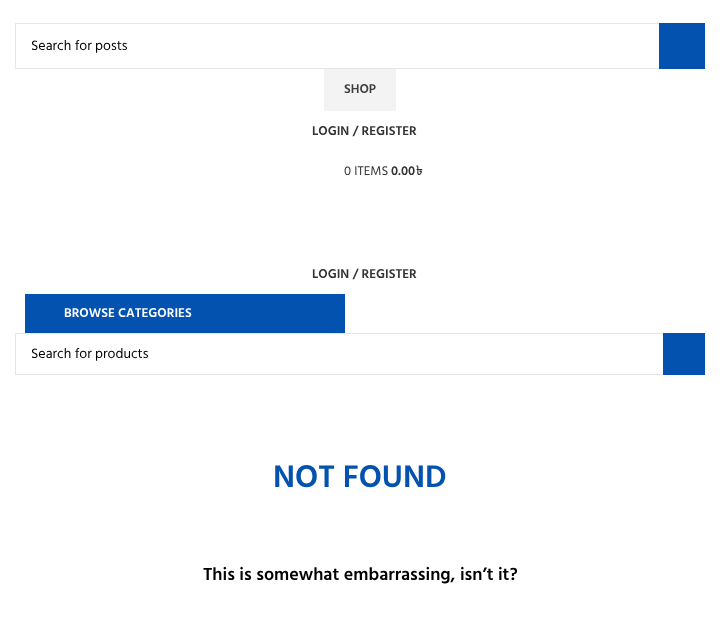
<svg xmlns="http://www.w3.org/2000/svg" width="720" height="620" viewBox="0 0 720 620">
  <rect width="100%" height="100%" fill="rgb(255,255,255)"/>
  <rect x="15.5" y="23.5" width="689" height="45" fill="none" stroke="rgb(230,230,230)"/>
  <text x="31" y="50" font-family="Hind" font-size="14" fill="rgb(0,0,0)">Search for posts</text>
  <rect x="659" y="23" width="46" height="46" fill="rgb(4,82,176)"/>
  <rect x="324" y="69" width="72" height="42" fill="rgb(243,243,243)"/>
  <text x="344" y="93" font-family="Hind" font-size="13" font-weight="600" fill="rgb(62,62,62)">SHOP</text>
  <text x="312" y="135" font-family="Hind" font-size="13" font-weight="600" fill="rgb(51,51,51)">LOGIN / REGISTER</text>
  <text x="344" y="175" font-family="Hind" font-size="13" fill="rgb(51,51,51)">0 ITEMS</text>
  <text x="391" y="175" font-family="Hind" font-size="13" font-weight="600" fill="rgb(51,51,51)">0.00</text>
  <text x="416" y="175" font-family="Lohit Bengali" font-size="13" font-weight="bold" fill="rgb(51,51,51)">৳</text>
  <text x="312" y="278" font-family="Hind" font-size="13" font-weight="600" fill="rgb(51,51,51)">LOGIN / REGISTER</text>
  <rect x="25" y="294" width="320" height="39" fill="rgb(4,82,176)"/>
  <text x="64" y="317" font-family="Hind" font-size="13" font-weight="600" fill="rgb(255,255,255)">BROWSE CATEGORIES</text>
  <rect x="15.5" y="333.5" width="689" height="41" fill="none" stroke="rgb(230,230,230)"/>
  <text x="31" y="358" font-family="Hind" font-size="14" fill="rgb(0,0,0)">Search for products</text>
  <rect x="663" y="333" width="42" height="42" fill="rgb(4,82,176)"/>
  <text x="273" y="487" font-family="Hind" font-size="32" font-weight="600" fill="rgb(4,82,176)">NOT FOUND</text>
  <text x="203" y="580" font-family="Hind" font-size="18" font-weight="600" fill="rgb(0,0,0)">This is somewhat embarrassing, isn’t it?</text>
</svg>
